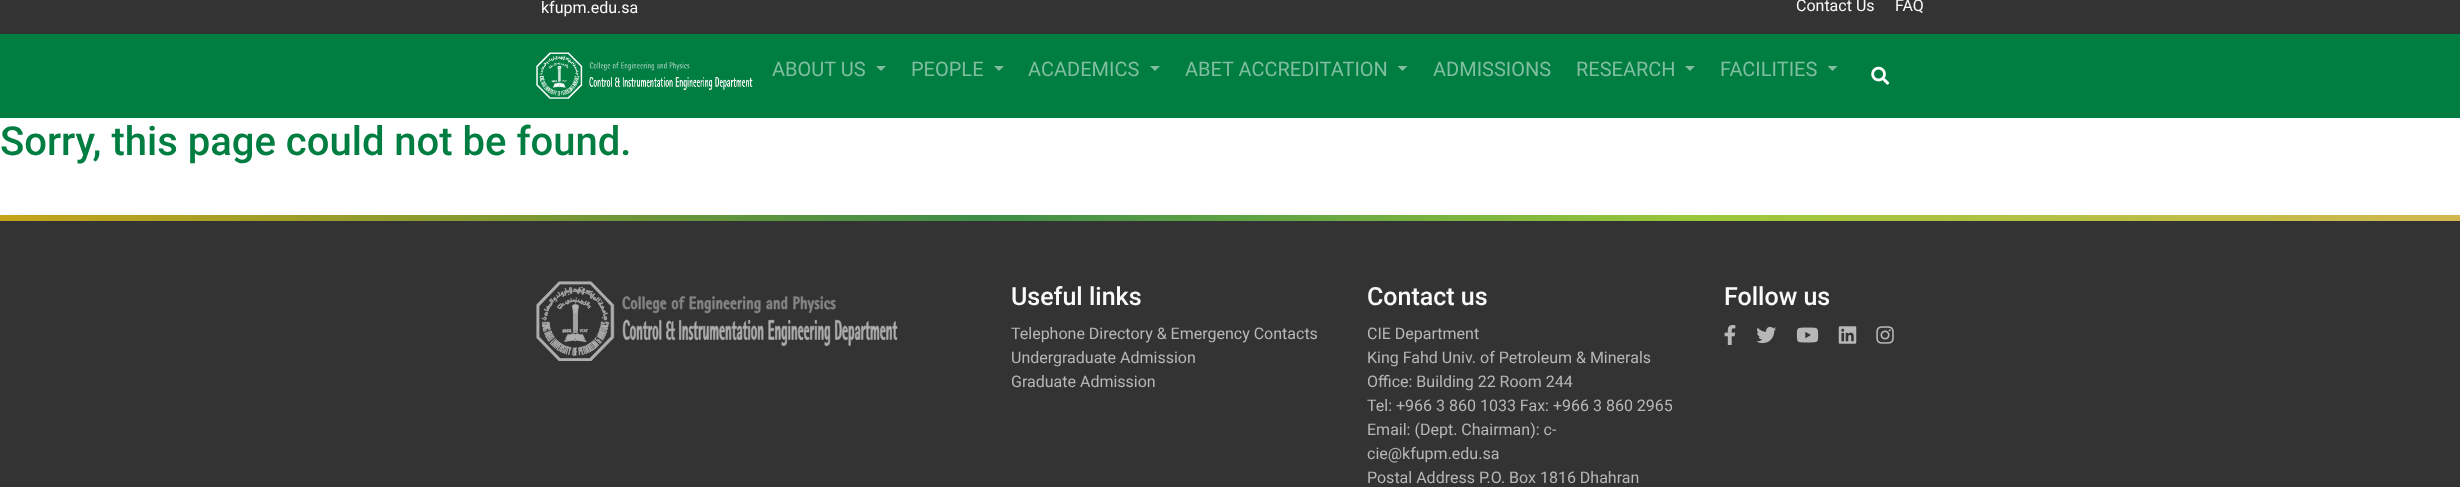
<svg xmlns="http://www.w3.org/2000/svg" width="2460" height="487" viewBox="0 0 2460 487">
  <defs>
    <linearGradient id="g1" gradientUnits="userSpaceOnUse" x1="0" y1="218" x2="2460" y2="218"><stop offset="0" stop-color="rgb(198,164,27)"/><stop offset="0.4" stop-color="rgb(62,142,72)"/><stop offset="0.69" stop-color="rgb(154,199,59)"/><stop offset="1" stop-color="rgb(210,184,78)"/></linearGradient>
  </defs>
  <rect width="100%" height="100%" fill="rgb(255,255,255)"/>
  <rect x="0" y="0" width="2460" height="34" fill="rgb(51,51,51)"/>
  <g font-family="Roboto" font-size="16" fill="rgb(250,250,250)">
    <text x="541" y="13">kfupm.edu.sa</text>
    <text x="1796" y="11">Contact Us</text>
    <text x="1895" y="11">FAQ</text>
  </g>
  <rect x="0" y="34" width="2460" height="84" fill="rgb(0,125,64)"/>
  <image x="536" y="52" width="217" height="47" href="pic1.png"/>
  <text x="772" y="76" font-family="Roboto" font-size="20" fill="rgb(128,190,160)">ABOUT US</text>
  <path d="M876 66H886L881 71Z" fill="rgb(128,190,160)"/>
  <text x="911" y="76" font-family="Roboto" font-size="20" fill="rgb(128,190,160)">PEOPLE</text>
  <path d="M994 66H1004L999 71Z" fill="rgb(128,190,160)"/>
  <text x="1028" y="76" font-family="Roboto" font-size="20" fill="rgb(128,190,160)">ACADEMICS</text>
  <path d="M1150 66H1160L1155 71Z" fill="rgb(128,190,160)"/>
  <text x="1185" y="76" font-family="Roboto" font-size="20" fill="rgb(128,190,160)">ABET ACCREDITATION</text>
  <path d="M1397.5 66H1407.5L1402.5 71Z" fill="rgb(128,190,160)"/>
  <g font-family="Roboto" font-size="20" fill="rgb(128,190,160)">
    <text x="1433" y="76">ADMISSIONS</text>
    <text x="1576" y="76">RESEARCH</text>
  </g>
  <path d="M1685 66H1695L1690 71Z" fill="rgb(128,190,160)"/>
  <text x="1720" y="76" font-family="Roboto" font-size="20" fill="rgb(128,190,160)">FACILITIES</text>
  <path d="M1827.5 66H1837.5L1832.5 71Z" fill="rgb(128,190,160)"/>
  <image x="1871" y="66" width="19" height="19" href="pic2.png"/>
  <text x="0" y="155" font-family="Roboto" font-size="40" font-weight="500" fill="rgb(0,125,64)">Sorry, this page could not be found.</text>
  <rect x="0" y="221" width="2460" height="266" fill="rgb(51,51,51)"/>
  <rect x="0" y="215" width="2460" height="6" fill="url(#g1)"/>
  <image x="536" y="281" width="362" height="80" href="pic3.png"/>
  <text x="1011" y="305" font-family="Roboto" font-size="25" font-weight="500" fill="rgb(250,250,250)">Useful links</text>
  <g font-family="Roboto" font-size="16" fill="rgb(183,183,183)">
    <text>
      <tspan x="1011" y="339">Telephone Directory &amp; Emergency Contacts</tspan>
      <tspan x="1011" y="363">Undergraduate Admission</tspan>
      <tspan x="1011" y="387">Graduate Admission</tspan>
    </text>
  </g>
  <text x="1367" y="305" font-family="Roboto" font-size="25" font-weight="500" fill="rgb(250,250,250)">Contact us</text>
  <g font-family="Roboto" font-size="16" fill="rgb(183,183,183)">
    <text>
      <tspan x="1367" y="339">CIE Department</tspan>
      <tspan x="1367" y="363">King Fahd Univ. of Petroleum &amp; Minerals</tspan>
      <tspan x="1367" y="387">Office: Building 22 Room 244</tspan>
      <tspan x="1367" y="411">Tel: +966 3 860 1033 Fax: +966 3 860 2965</tspan>
      <tspan x="1367" y="435">Email: (Dept. Chairman): c-</tspan>
      <tspan x="1367" y="459">cie@kfupm.edu.sa</tspan>
      <tspan x="1367" y="483">Postal Address P.O. Box 1816 Dhahran</tspan>
    </text>
  </g>
  <text x="1724" y="305" font-family="Roboto" font-size="25" font-weight="500" fill="rgb(250,250,250)">Follow us</text>
  <image x="1724" y="325" width="12" height="20" href="pic4.png"/>
  <image x="1756" y="326" width="20" height="18" href="pic5.png"/>
  <image x="1796" y="327" width="23" height="16" href="pic6.png"/>
  <image x="1838" y="326" width="19" height="18" href="pic7.png"/>
  <image x="1876" y="326" width="18" height="18" href="pic8.png"/>
</svg>
